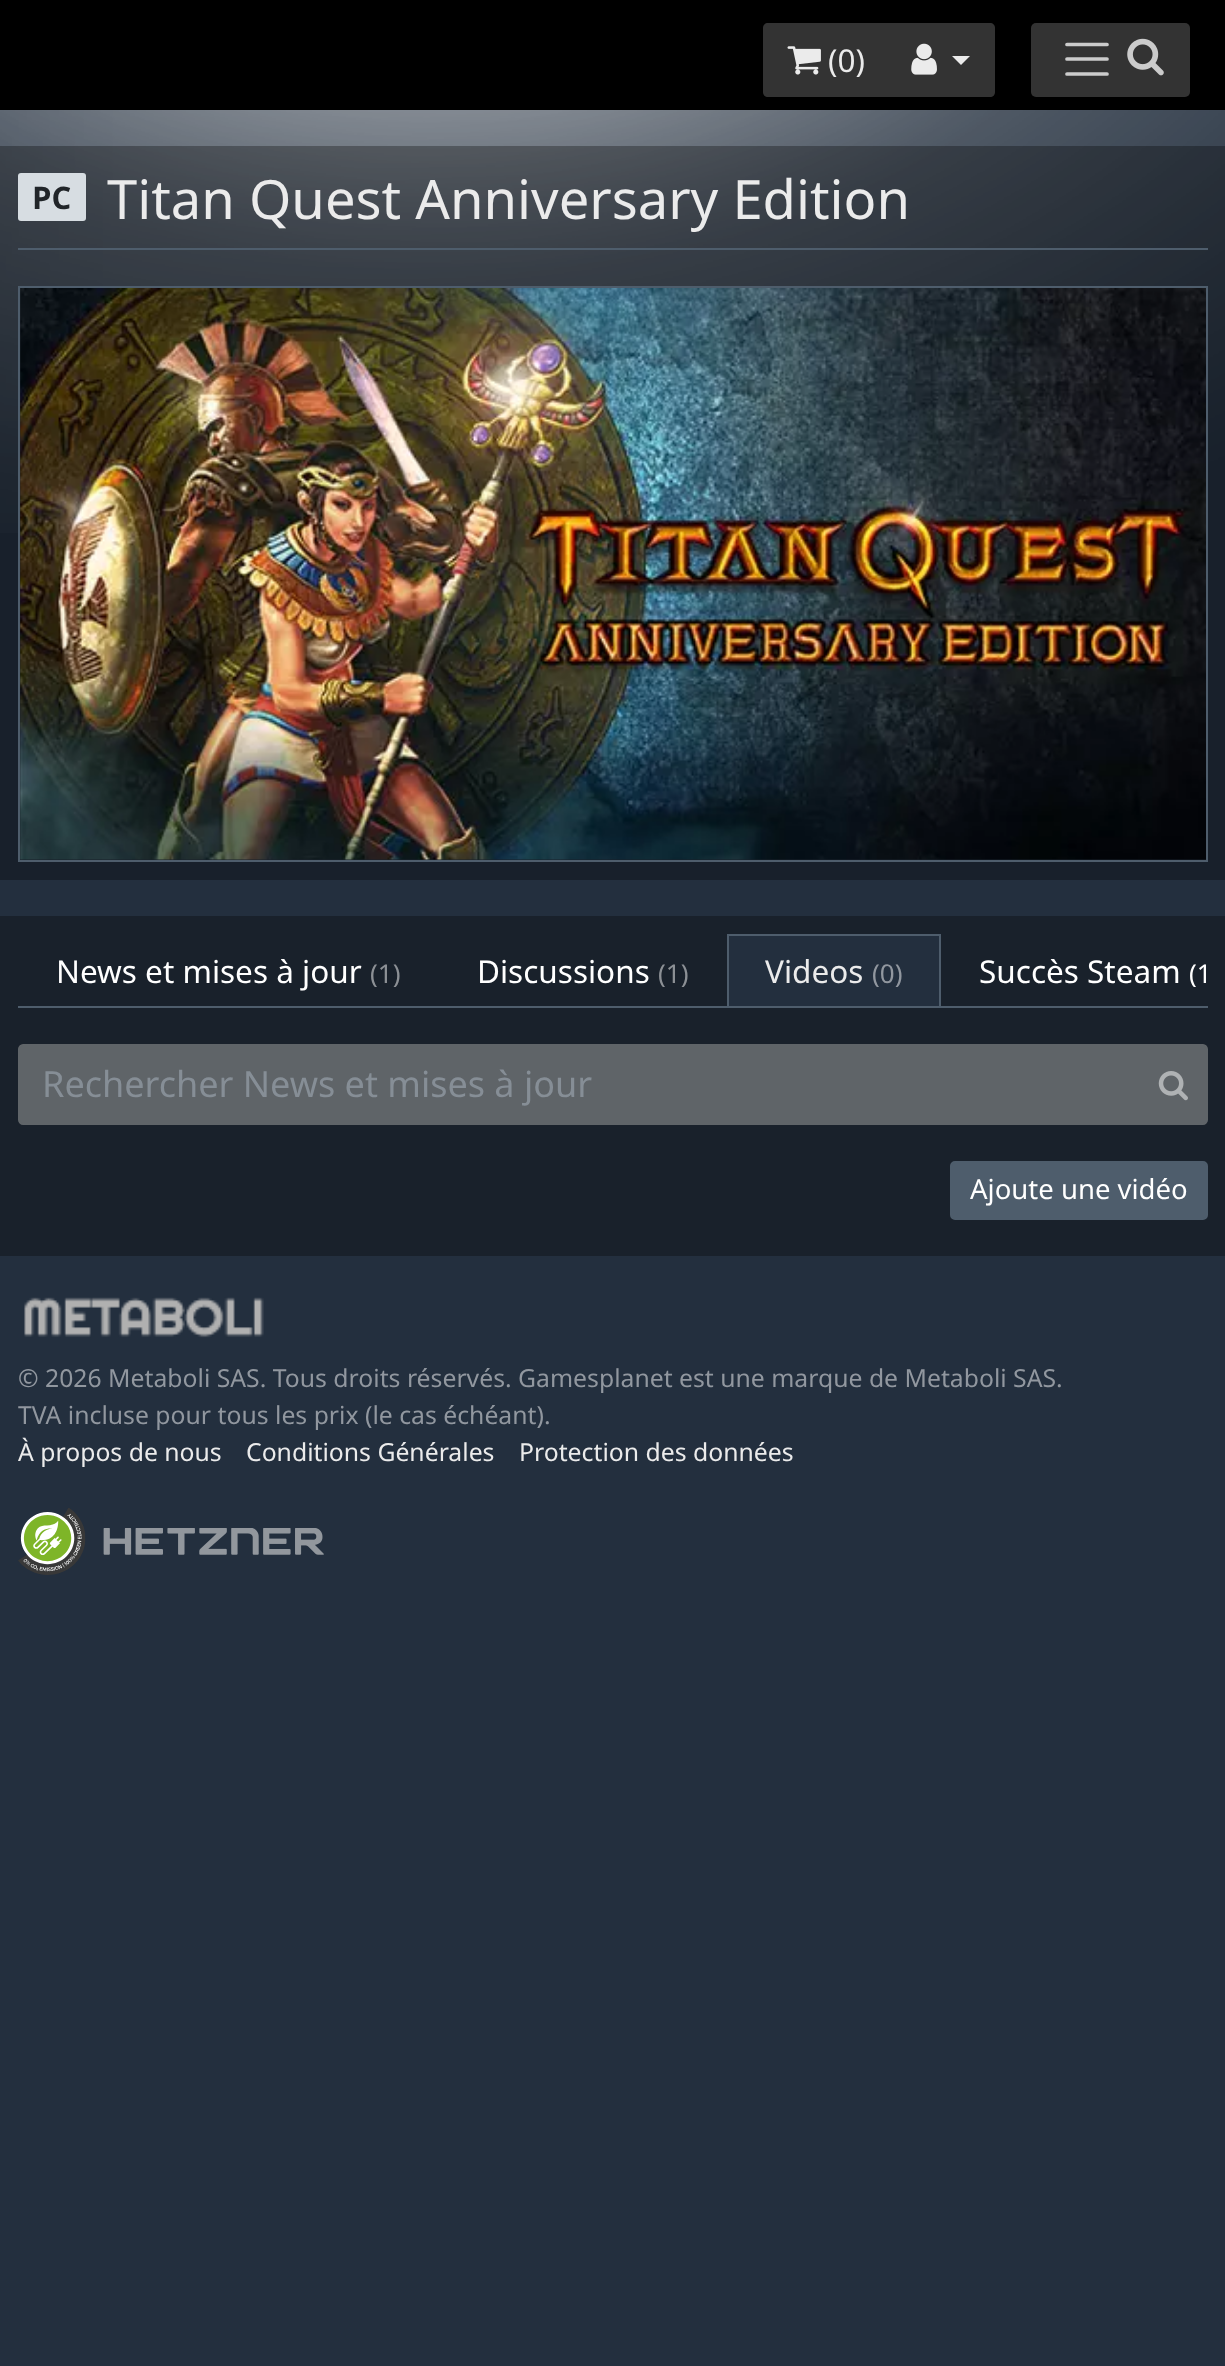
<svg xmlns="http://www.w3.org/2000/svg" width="1225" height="2366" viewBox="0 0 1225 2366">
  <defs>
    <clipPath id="clip1"><rect x="18" y="934" width="1190" height="72"/></clipPath>
  </defs>
  <rect width="100%" height="100%" fill="rgb(35,47,62)"/>
  <image x="0" y="110" width="1225" height="423" href="pic1.png"/>
  <rect x="0" y="0" width="1225" height="110" fill="rgb(0,0,0)"/>
  <path d="M768 23H889V97H768C765 97 763 95 763 92V28C763 25 765 23 768 23Z" fill="rgb(51,51,51)"/>
  <image x="787" y="46" width="34" height="29" href="pic2.png"/>
  <text x="828" y="72" font-family="Noto Sans" font-size="31.5" fill="rgb(235,235,235)">(0)</text>
  <path d="M887 23H990C993 23 995 25 995 28V92C995 95 993 97 990 97H887Z" fill="rgb(51,51,51)"/>
  <image x="911" y="43" width="26" height="32" href="pic3.png"/>
  <path d="M952 56H970L961 65Z" fill="rgb(235,235,235)"/>
  <rect x="1031" y="23" width="159" height="74" rx="5" fill="rgb(51,51,51)"/>
  <path d="M1067 44.5H1107M1067 59H1107M1067 74H1107" fill="none" stroke="rgb(204,204,204)" stroke-width="3.7" stroke-linecap="round"/>
  <image x="1127" y="38" width="37" height="38" href="pic4.png"/>
  <rect x="0" y="146" width="1225" height="734" fill="rgba(0,0,0,0.3)"/>
  <rect x="18" y="173" width="68" height="48" rx="3" fill="rgb(215,221,226)"/>
  <text x="32" y="209" font-family="Noto Sans" font-size="31" font-weight="bold" fill="rgb(33,37,41)">PC</text>
  <rect x="18" y="248" width="1190" height="2" fill="rgb(78,93,108)"/>
  <text x="107" y="219" font-family="Noto Sans" font-size="54.3" fill="rgb(235,235,235)">Titan Quest Anniversary Edition</text>
  <rect x="19" y="287" width="1188" height="574" fill="none" stroke="rgb(78,93,108)" stroke-width="2"/>
  <image x="20" y="288" width="1186" height="572" href="pic5.png"/>
  <rect x="0" y="916" width="1225" height="340" fill="rgb(25,33,43)"/>
  <rect x="18" y="1006" width="1190" height="2" fill="rgb(78,93,108)"/>
  <text x="56" y="983" font-family="Noto Sans" font-size="31.5" fill="rgb(255,255,255)">News et mises à jour</text>
  <text x="370" y="983" font-family="Noto Sans" font-size="26" fill="rgb(140,144,149)">(1)</text>
  <text x="477" y="983" font-family="Noto Sans" font-size="31.5" fill="rgb(255,255,255)">Discussions</text>
  <text x="658" y="983" font-family="Noto Sans" font-size="26" fill="rgb(140,144,149)">(1)</text>
  <rect x="729" y="936" width="210" height="70" fill="rgb(35,47,62)"/>
  <g clip-path="url(#clip1)">
    <rect x="728" y="935" width="212" height="72" fill="none" stroke="rgb(78,93,108)" stroke-width="2"/>
  </g>
  <text x="765" y="983" font-family="Noto Sans" font-size="31.5" fill="rgb(235,235,235)">Videos</text>
  <text x="872" y="983" font-family="Noto Sans" font-size="26" fill="rgb(145,151,159)">(0)</text>
  <text x="979" y="983" font-family="Noto Sans" font-size="31.5" fill="rgb(255,255,255)">Succès Steam</text>
  <text x="1189" y="983" font-family="Noto Sans" font-size="26" fill="rgb(255,255,255)">(1</text>
  <path d="M23 1045H1140V1124H23C21 1124 19 1122 19 1120V1049C19 1047 21 1045 23 1045Z" fill="rgb(95,100,104)" stroke="rgb(95,100,104)" stroke-width="2"/>
  <text x="42" y="1097" font-family="Noto Sans" font-size="36" fill="rgb(134,142,150)">Rechercher News et mises à jour</text>
  <path d="M1140 1045H1203C1205 1045 1207 1047 1207 1049V1120C1207 1122 1205 1124 1203 1124H1140Z" fill="rgb(95,100,104)" stroke="rgb(95,100,104)" stroke-width="2"/>
  <image x="1158" y="1071" width="30" height="30" href="pic6.png"/>
  <rect x="951" y="1162" width="256" height="57" rx="4" fill="rgb(78,93,108)" stroke="rgb(78,93,108)" stroke-width="2"/>
  <text x="970" y="1199" font-family="Noto Sans" font-size="27.5" fill="rgb(255,255,255)">Ajoute une vidéo</text>
  <image x="24" y="1297" width="240" height="41" href="pic7.png"/>
  <g font-family="Noto Sans" font-size="24.75" fill="rgb(145,151,159)">
    <text>
      <tspan x="18" y="1387">© 2026 Metaboli SAS. Tous droits réservés. Gamesplanet est une marque de Metaboli SAS.</tspan>
      <tspan x="18" y="1424">TVA incluse pour tous les prix (le cas échéant).</tspan>
    </text>
  </g>
  <g font-family="Noto Sans" font-size="24.75" fill="rgb(235,235,235)">
    <text x="18" y="1461">À propos de nous</text>
    <text x="246" y="1461">Conditions Générales</text>
    <text x="519" y="1461">Protection des données</text>
  </g>
  <image x="18" y="1508" width="68" height="67" href="pic8.png"/>
  <image x="103" y="1528" width="221" height="27" href="pic9.png"/>
</svg>
